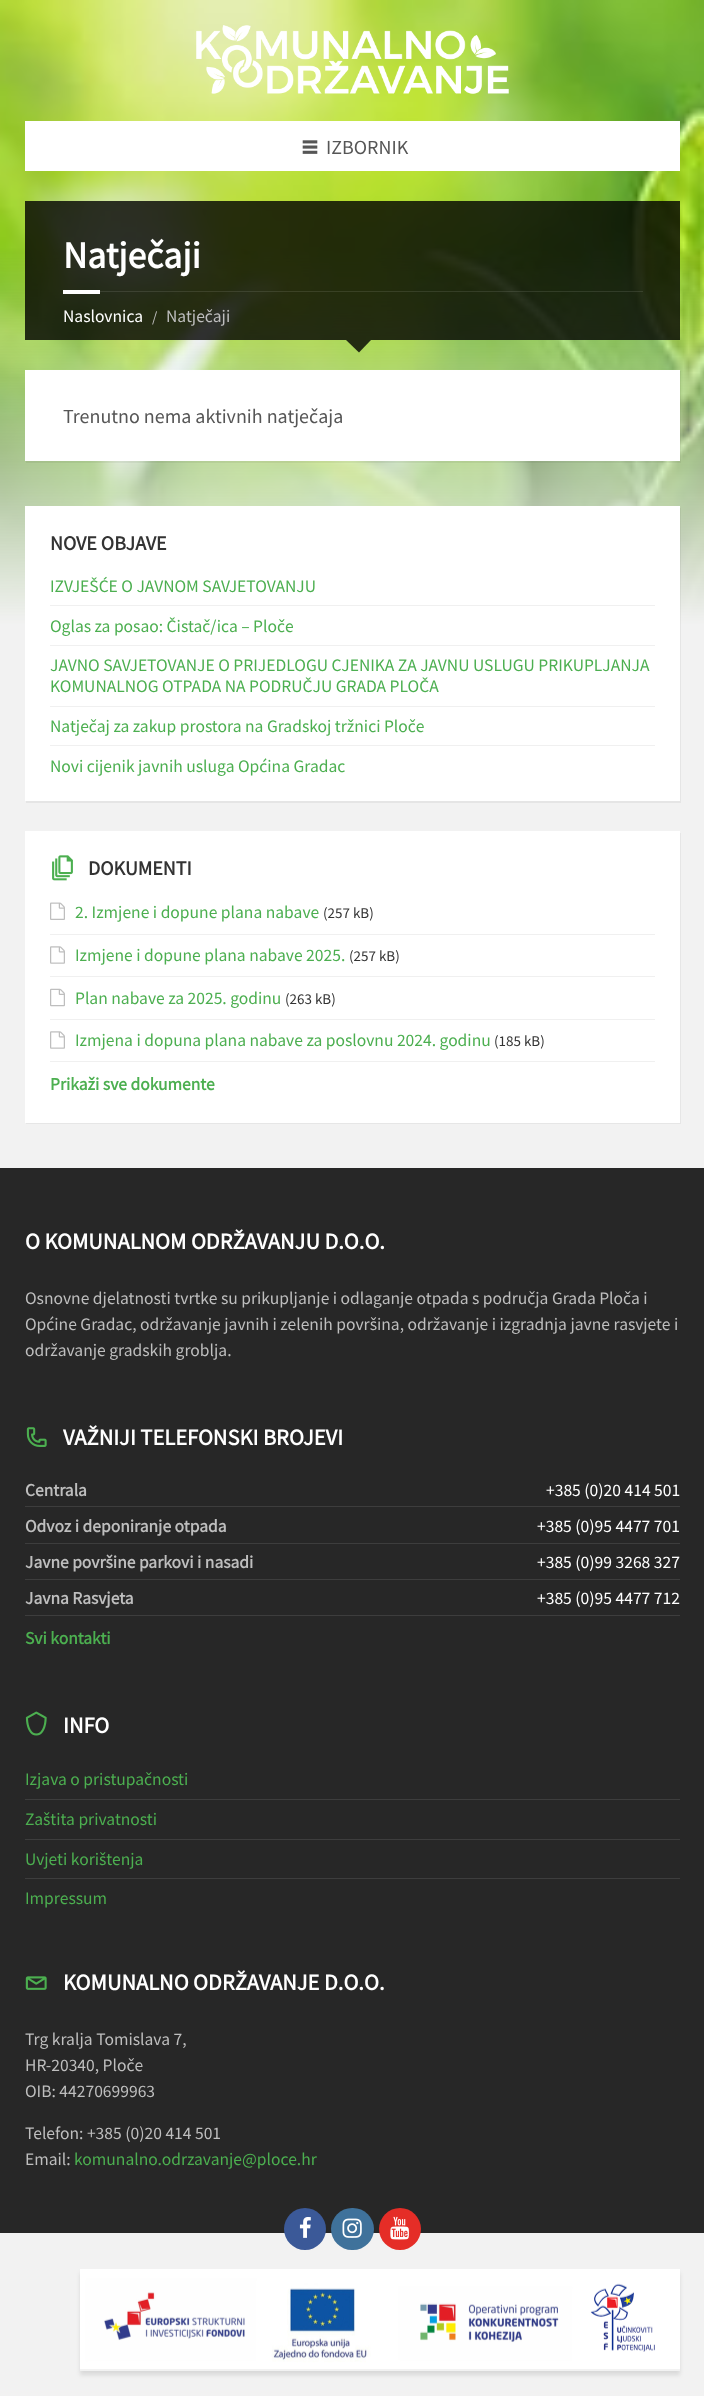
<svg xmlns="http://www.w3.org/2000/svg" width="704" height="2396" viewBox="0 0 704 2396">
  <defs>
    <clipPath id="clip1"><path d="M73 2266H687V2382H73ZM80 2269H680V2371H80Z" clip-rule="evenodd"/></clipPath>
  </defs>
  <rect width="100%" height="100%" fill="rgb(242,242,242)"/>
  <image x="0" y="0" width="704" height="625" href="pic1.png"/>
  <image x="196" y="25" width="313" height="69" href="pic2.png"/>
  <rect x="25" y="121" width="655" height="50" fill="rgb(255,255,255)"/>
  <image x="302" y="140" width="16" height="14" href="pic3.png"/>
  <text x="326" y="154" font-family="Source Sans Pro" font-size="20" fill="rgb(86,86,86)">IZBORNIK</text>
  <rect x="25" y="201" width="655" height="139" fill="rgba(0,0,0,0.8)"/>
  <rect x="100" y="291" width="543" height="1" fill="rgba(255,255,255,0.1)"/>
  <text x="63" y="268" font-family="Source Sans Pro" font-size="37.5" font-weight="bold" fill="rgb(255,255,255)">Natječaji</text>
  <rect x="63" y="290" width="37" height="4" fill="rgb(255,255,255)"/>
  <text x="63" y="322" font-family="Source Sans Pro" font-size="17.5" fill="rgb(255,255,255)">Naslovnica</text>
  <text x="152" y="322" font-family="Source Sans Pro" font-size="15" fill="rgb(190,190,190)">/</text>
  <text x="166" y="322" font-family="Source Sans Pro" font-size="17.5" fill="rgb(190,190,190)">Natječaji</text>
  <path d="M346 340H371L359 352.5Z" fill="rgba(0,0,0,0.8)"/>
  <path d="M26 461V463H681V371H680V461Z" fill="rgba(0,0,0,0.05)"/>
  <rect x="25" y="370" width="655" height="91" fill="rgb(255,255,255)"/>
  <text x="63" y="423" font-family="Source Sans Pro" font-size="20" fill="rgb(86,86,86)">Trenutno nema aktivnih natječaja</text>
  <path d="M26 801V803H681V508H680V801Z" fill="rgba(0,0,0,0.05)"/>
  <rect x="25" y="506" width="655" height="295" fill="rgb(255,255,255)"/>
  <text x="50" y="550" font-family="Source Sans Pro" font-size="20" font-weight="bold" fill="rgb(51,51,51)">NOVE OBJAVE</text>
  <text x="50" y="592" font-family="Source Sans Pro" font-size="17.5" fill="rgb(76,175,80)">IZVJEŠĆE O JAVNOM SAVJETOVANJU</text>
  <rect x="50" y="605" width="605" height="1" fill="rgb(240,240,240)"/>
  <text x="50" y="632" font-family="Source Sans Pro" font-size="17.5" fill="rgb(76,175,80)">Oglas za posao: Čistač/ica – Ploče</text>
  <rect x="50" y="645" width="605" height="1" fill="rgb(240,240,240)"/>
  <g font-family="Source Sans Pro" font-size="17.5" fill="rgb(76,175,80)">
    <text>
      <tspan x="50" y="671">JAVNO SAVJETOVANJE O PRIJEDLOGU CJENIKA ZA JAVNU USLUGU PRIKUPLJANJA</tspan>
      <tspan x="50" y="692">KOMUNALNOG OTPADA NA PODRUČJU GRADA PLOČA</tspan>
    </text>
  </g>
  <rect x="50" y="706" width="605" height="1" fill="rgb(240,240,240)"/>
  <text x="50" y="732" font-family="Source Sans Pro" font-size="17.5" fill="rgb(76,175,80)">Natječaj za zakup prostora na Gradskoj tržnici Ploče</text>
  <rect x="50" y="745" width="605" height="1" fill="rgb(240,240,240)"/>
  <text x="50" y="772" font-family="Source Sans Pro" font-size="17.5" fill="rgb(76,175,80)">Novi cijenik javnih usluga Općina Gradac</text>
  <path d="M26 1122V1124H681V833H680V1122Z" fill="rgb(230,230,230)"/>
  <rect x="25" y="831" width="655" height="292" fill="rgb(255,255,255)"/>
  <image x="52" y="855" width="21" height="26" href="pic4.png"/>
  <text x="88" y="875" font-family="Source Sans Pro" font-size="20" font-weight="bold" fill="rgb(51,51,51)">DOKUMENTI</text>
  <image x="50" y="902" width="15" height="18" href="pic5.png"/>
  <text x="75" y="918" font-family="Source Sans Pro" font-size="17.5" fill="rgb(76,175,80)">2. Izmjene i dopune plana nabave</text>
  <text x="323" y="918" font-family="Source Sans Pro" font-size="15" fill="rgb(51,51,51)">(257 kB)</text>
  <rect x="50" y="934" width="605" height="1" fill="rgb(240,240,240)"/>
  <image x="50" y="946" width="15" height="18" href="pic6.png"/>
  <text x="75" y="961" font-family="Source Sans Pro" font-size="17.5" fill="rgb(76,175,80)">Izmjene i dopune plana nabave 2025.</text>
  <text x="349" y="961" font-family="Source Sans Pro" font-size="15" fill="rgb(51,51,51)">(257 kB)</text>
  <rect x="50" y="976" width="605" height="1" fill="rgb(240,240,240)"/>
  <image x="50" y="988" width="15" height="19" href="pic7.png"/>
  <text x="75" y="1004" font-family="Source Sans Pro" font-size="17.5" fill="rgb(76,175,80)">Plan nabave za 2025. godinu</text>
  <text x="285" y="1004" font-family="Source Sans Pro" font-size="15" fill="rgb(51,51,51)">(263 kB)</text>
  <rect x="50" y="1019" width="605" height="1" fill="rgb(240,240,240)"/>
  <image x="50" y="1031" width="15" height="18" href="pic6.png"/>
  <text x="75" y="1046" font-family="Source Sans Pro" font-size="17.5" fill="rgb(76,175,80)">Izmjena i dopuna plana nabave za poslovnu 2024. godinu</text>
  <text x="494" y="1046" font-family="Source Sans Pro" font-size="15" fill="rgb(51,51,51)">(185 kB)</text>
  <rect x="50" y="1061" width="605" height="1" fill="rgb(240,240,240)"/>
  <text x="50" y="1090" font-family="Source Sans Pro" font-size="17.5" font-weight="bold" fill="rgb(76,175,80)">Prikaži sve dokumente</text>
  <rect x="0" y="1168" width="704" height="1065" fill="rgb(39,39,39)"/>
  <text x="25" y="1249" font-family="Source Sans Pro" font-size="22.5" font-weight="bold" fill="rgb(255,255,255)">O KOMUNALNOM ODRŽAVANJU D.O.O.</text>
  <g font-family="Source Sans Pro" font-size="17.5" fill="rgb(190,190,190)">
    <text>
      <tspan x="25" y="1304">Osnovne djelatnosti tvrtke su prikupljanje i odlaganje otpada s područja Grada Ploča i</tspan>
      <tspan x="25" y="1330">Općine Gradac, održavanje javnih i zelenih površina, održavanje i izgradnja javne rasvjete i</tspan>
      <tspan x="25" y="1356">održavanje gradskih groblja.</tspan>
    </text>
  </g>
  <image x="26" y="1427" width="21" height="20" href="pic8.png"/>
  <text x="63" y="1445" font-family="Source Sans Pro" font-size="22.5" font-weight="bold" fill="rgb(255,255,255)">VAŽNIJI TELEFONSKI BROJEVI</text>
  <text x="25" y="1496" font-family="Source Sans Pro" font-size="17.5" font-weight="bold" fill="rgb(190,190,190)">Centrala</text>
  <text x="546" y="1496" font-family="Source Sans Pro" font-size="17.5" fill="rgb(255,255,255)">+385 (0)20 414 501</text>
  <rect x="25" y="1506" width="655" height="1" fill="rgb(61,61,61)"/>
  <text x="25" y="1532" font-family="Source Sans Pro" font-size="17.5" font-weight="bold" fill="rgb(190,190,190)">Odvoz i deponiranje otpada</text>
  <text x="537" y="1532" font-family="Source Sans Pro" font-size="17.5" fill="rgb(255,255,255)">+385 (0)95 4477 701</text>
  <rect x="25" y="1543" width="655" height="1" fill="rgb(61,61,61)"/>
  <text x="25" y="1568" font-family="Source Sans Pro" font-size="17.5" font-weight="bold" fill="rgb(190,190,190)">Javne površine parkovi i nasadi</text>
  <text x="537" y="1568" font-family="Source Sans Pro" font-size="17.5" fill="rgb(255,255,255)">+385 (0)99 3268 327</text>
  <rect x="25" y="1579" width="655" height="1" fill="rgb(61,61,61)"/>
  <text x="25" y="1604" font-family="Source Sans Pro" font-size="17.5" font-weight="bold" fill="rgb(190,190,190)">Javna Rasvjeta</text>
  <text x="537" y="1604" font-family="Source Sans Pro" font-size="17.5" fill="rgb(255,255,255)">+385 (0)95 4477 712</text>
  <rect x="25" y="1615" width="655" height="1" fill="rgb(61,61,61)"/>
  <text x="25" y="1644" font-family="Source Sans Pro" font-size="17.5" font-weight="bold" fill="rgb(76,175,80)">Svi kontakti</text>
  <image x="25" y="1711" width="22" height="25" href="pic9.png"/>
  <text x="63" y="1733" font-family="Source Sans Pro" font-size="22.5" font-weight="bold" fill="rgb(255,255,255)">INFO</text>
  <text x="25" y="1785" font-family="Source Sans Pro" font-size="17.5" fill="rgb(76,175,80)">Izjava o pristupačnosti</text>
  <rect x="25" y="1799" width="655" height="1" fill="rgb(61,61,61)"/>
  <text x="25" y="1825" font-family="Source Sans Pro" font-size="17.5" fill="rgb(76,175,80)">Zaštita privatnosti</text>
  <rect x="25" y="1839" width="655" height="1" fill="rgb(61,61,61)"/>
  <text x="25" y="1865" font-family="Source Sans Pro" font-size="17.5" fill="rgb(76,175,80)">Uvjeti korištenja</text>
  <rect x="25" y="1878" width="655" height="1" fill="rgb(61,61,61)"/>
  <text x="25" y="1904" font-family="Source Sans Pro" font-size="17.5" fill="rgb(76,175,80)">Impressum</text>
  <image x="25" y="1976" width="22" height="14" href="pic10.png"/>
  <text x="63" y="1990" font-family="Source Sans Pro" font-size="22.5" font-weight="bold" fill="rgb(255,255,255)">KOMUNALNO ODRŽAVANJE D.O.O.</text>
  <g font-family="Source Sans Pro" font-size="17.5" fill="rgb(190,190,190)">
    <text>
      <tspan x="25" y="2045">Trg kralja Tomislava 7,</tspan>
      <tspan x="25" y="2071">HR-20340, Ploče</tspan>
      <tspan x="25" y="2097">OIB: 44270699963</tspan>
    </text>
    <text>
      <tspan x="25" y="2139">Telefon: +385 (0)20 414 501</tspan>
      <tspan x="25" y="2165">Email:</tspan>
    </text>
  </g>
  <text x="74" y="2165" font-family="Source Sans Pro" font-size="17.5" fill="rgb(76,175,80)">komunalno.odrzavanje@ploce.hr</text>
  <circle cx="305" cy="2229" r="21" fill="rgb(59,89,152)"/>
  <image x="299" y="2217" width="12" height="21" href="pic11.png"/>
  <rect x="331" y="2208" width="43" height="42" rx="21" fill="rgb(63,114,155)"/>
  <image x="342" y="2218" width="20" height="20" href="pic12.png"/>
  <circle cx="400" cy="2229" r="21" fill="rgb(229,45,39)"/>
  <image x="390" y="2216" width="19" height="24" href="pic13.png"/>
  <g clip-path="url(#clip1)">
    <rect x="80" y="2273" width="600" height="102" fill="rgba(0,0,0,0.1)" filter="blur(2px)"/>
  </g>
  <image x="80" y="2269" width="600" height="100" href="pic14.png"/>
</svg>
